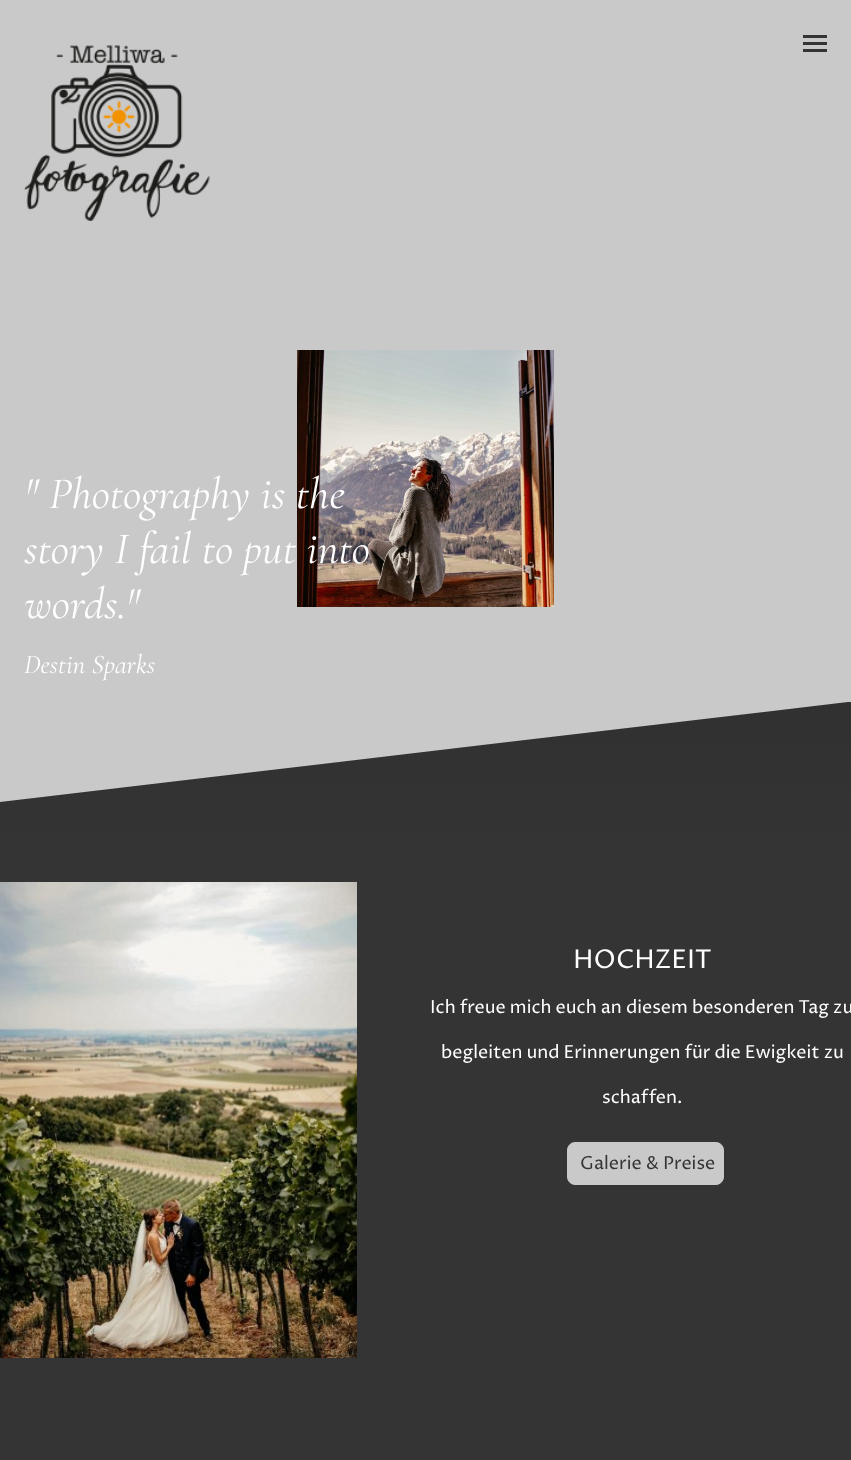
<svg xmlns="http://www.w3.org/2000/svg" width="851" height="1460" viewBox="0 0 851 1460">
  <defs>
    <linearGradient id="g1" gradientUnits="userSpaceOnUse" x1="426" y1="702" x2="426" y2="852"><stop offset="0" stop-color="rgb(0,0,0)" stop-opacity="0.07"/><stop offset="1" stop-color="rgb(0,0,0)" stop-opacity="0"/></linearGradient>
  </defs>
  <rect width="100%" height="100%" fill="rgb(201,201,201)"/>
  <image x="24" y="45" width="186" height="176" href="pic1.png"/>
  <rect x="803" y="35" width="24" height="3" fill="rgb(52,52,52)"/>
  <rect x="803" y="42" width="24" height="3" fill="rgb(52,52,52)"/>
  <rect x="803" y="49" width="24" height="3" fill="rgb(52,52,52)"/>
  <image x="297" y="350" width="257" height="257" href="pic2.png"/>
  <g font-family="Cormorant Garamond" font-size="45" font-style="italic" fill="rgb(255,255,255)">
    <text>
      <tspan x="24" y="508">" Photography is the</tspan>
      <tspan x="24" y="563">story I fail to put into</tspan>
      <tspan x="24" y="618">words."</tspan>
    </text>
  </g>
  <text x="24" y="673" font-family="Cormorant Garamond" font-size="27" font-style="italic" fill="rgb(255,255,255)">Destin Sparks</text>
  <path d="M0 802V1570H851V702H848Z" fill="rgb(52,52,52)"/>
  <path d="M0 802V852H851V702H848Z" fill="url(#g1)"/>
  <image x="0" y="882" width="357" height="476" href="pic3.png"/>
  <text x="573" y="968" font-family="Proza Libre" font-size="26" fill="rgb(255,255,255)">HOCHZEIT</text>
  <g font-family="Proza Libre" font-size="18" fill="rgb(255,255,255)">
    <text x="430" y="1013">Ich freue mich euch an diesem besonderen Tag zu</text>
    <text x="441" y="1058">begleiten und Erinnerungen für die Ewigkeit zu</text>
    <text x="602" y="1103">schaffen.</text>
  </g>
  <rect x="567.5" y="1142.5" width="156" height="42" rx="7.5" fill="rgb(201,201,201)" stroke="rgb(201,201,201)"/>
  <text x="580" y="1169" font-family="Proza Libre" font-size="18" fill="rgb(52,52,52)">Galerie &amp; Preise</text>
</svg>
